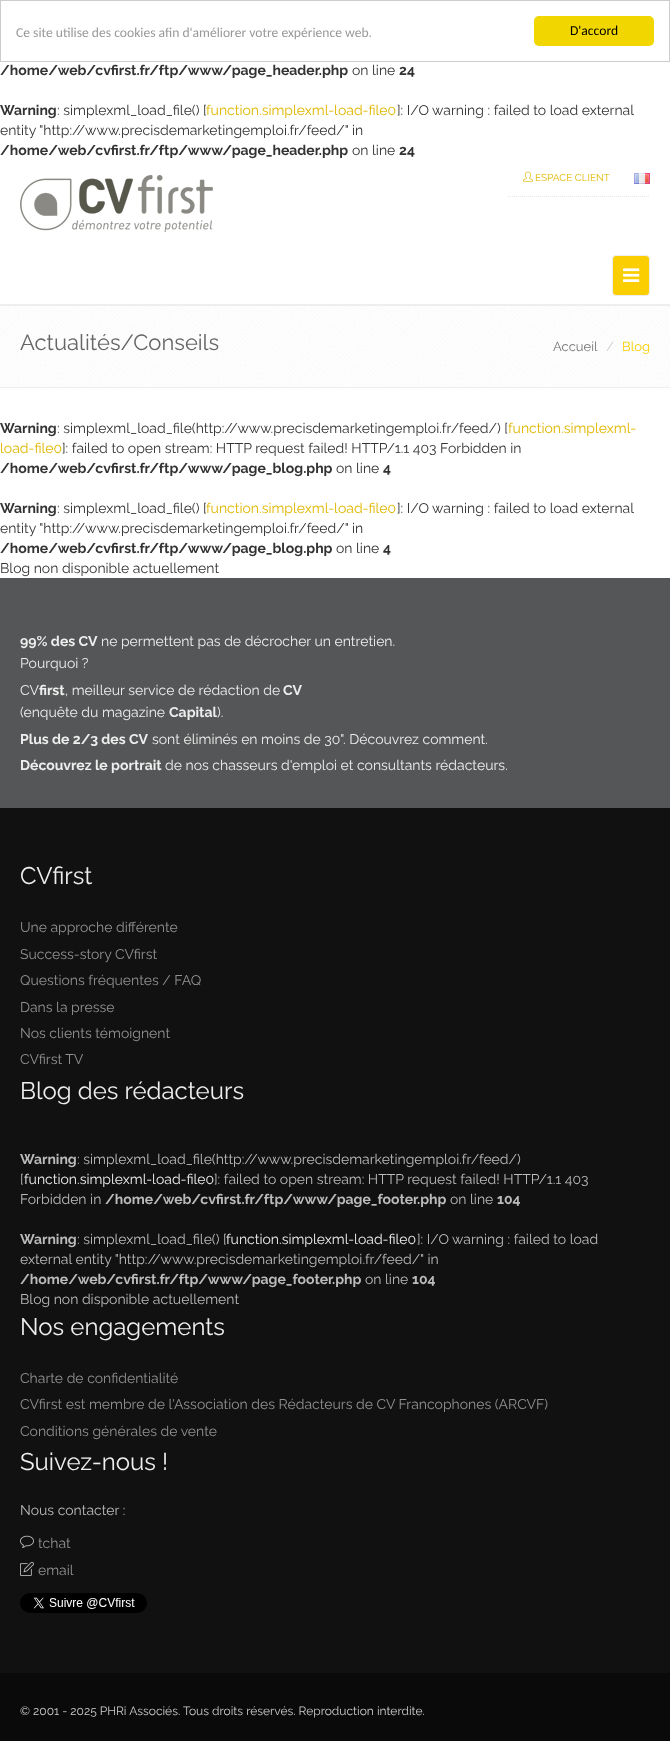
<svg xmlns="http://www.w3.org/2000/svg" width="670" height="1741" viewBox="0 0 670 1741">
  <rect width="100%" height="100%" fill="rgb(255,255,255)"/>
  <rect x="0.5" y="0.5" width="669" height="61" fill="none" stroke="rgb(204,204,204)"/>
  <text x="16" y="37" font-family="Carlito" font-size="13.6" fill="rgb(153,153,153)">Ce site utilise des cookies afin d'améliorer votre expérience web.</text>
  <rect x="534" y="16" width="120" height="30" rx="5" fill="rgb(241,214,0)"/>
  <text x="570" y="35" font-family="Carlito" font-size="13.6" fill="rgb(0,0,0)">D'accord</text>
  <text x="0" y="75" font-family="Raleway" font-size="14" font-weight="bold" fill="rgb(51,51,51)">/home/web/cvfirst.fr/ftp/www/page_header.php</text>
  <text x="352" y="75" font-family="Raleway" font-size="14" fill="rgb(51,51,51)">on line</text>
  <g font-family="Raleway" font-size="14" font-weight="bold" fill="rgb(51,51,51)">
    <text x="399" y="75">24</text>
    <text x="0" y="115">Warning</text>
  </g>
  <text x="57" y="115" font-family="Raleway" font-size="14" fill="rgb(51,51,51)">: simplexml_load_file() [</text>
  <text x="206" y="115" font-family="Raleway" font-size="14" fill="rgb(224,183,0)">function.simplexml-load-file0</text>
  <g font-family="Raleway" font-size="14" fill="rgb(51,51,51)">
    <text x="397" y="115">]: I/O warning : failed to load external</text>
    <text x="0" y="135">entity "http://www.precisdemarketingemploi.fr/feed/" in</text>
  </g>
  <text x="0" y="155" font-family="Raleway" font-size="14" font-weight="bold" fill="rgb(51,51,51)">/home/web/cvfirst.fr/ftp/www/page_header.php</text>
  <text x="352" y="155" font-family="Raleway" font-size="14" fill="rgb(51,51,51)">on line</text>
  <text x="399" y="155" font-family="Raleway" font-size="14" font-weight="bold" fill="rgb(51,51,51)">24</text>
  <image x="20" y="175" width="193" height="57" href="pic1.png"/>
  <path d="M508 196.5H650" fill="none" stroke="rgb(230,230,230)" stroke-dasharray="1 1"/>
  <image x="523" y="171" width="10" height="11" href="pic2.png"/>
  <text x="535" y="181" font-family="Raleway" font-size="10" fill="rgb(224,183,0)">ESPACE CLIENT</text>
  <image x="634" y="173" width="16" height="11" href="pic3.png"/>
  <rect x="612.5" y="255.5" width="37" height="40" rx="3.5" fill="rgb(250,206,0)" stroke="rgb(238,238,238)"/>
  <image x="623" y="268" width="17" height="14" href="pic4.png"/>
  <image x="0" y="306" width="670" height="81" href="pic5.png"/>
  <rect x="0" y="304" width="670" height="2" fill="rgb(238,238,238)"/>
  <rect x="0" y="387" width="670" height="1" fill="rgb(238,238,238)"/>
  <text x="20" y="350" font-family="Raleway" font-size="22" fill="rgb(102,102,102)">Actualités/Conseils</text>
  <text x="553" y="351" font-family="Raleway" font-size="13" fill="rgb(119,119,119)">Accueil</text>
  <text x="606" y="351" font-family="Raleway" font-size="13" fill="rgb(204,204,204)">/</text>
  <text x="622" y="351" font-family="Raleway" font-size="13" fill="rgb(250,206,0)">Blog</text>
  <text x="0" y="433" font-family="Raleway" font-size="14" font-weight="bold" fill="rgb(51,51,51)">Warning</text>
  <text x="57" y="433" font-family="Raleway" font-size="14" fill="rgb(51,51,51)">: simplexml_load_file(http://www.precisdemarketingemploi.fr/feed/) [</text>
  <g font-family="Raleway" font-size="14" fill="rgb(224,183,0)">
    <text x="508" y="433">function.simplexml-</text>
    <text x="0" y="453">load-file0</text>
  </g>
  <text x="62" y="453" font-family="Raleway" font-size="14" fill="rgb(51,51,51)">]: failed to open stream: HTTP request failed! HTTP/1.1 403 Forbidden in</text>
  <text x="0" y="473" font-family="Raleway" font-size="14" font-weight="bold" fill="rgb(51,51,51)">/home/web/cvfirst.fr/ftp/www/page_blog.php</text>
  <text x="336" y="473" font-family="Raleway" font-size="14" fill="rgb(51,51,51)">on line</text>
  <g font-family="Raleway" font-size="14" font-weight="bold" fill="rgb(51,51,51)">
    <text x="383" y="473">4</text>
    <text x="0" y="513">Warning</text>
  </g>
  <text x="57" y="513" font-family="Raleway" font-size="14" fill="rgb(51,51,51)">: simplexml_load_file() [</text>
  <text x="206" y="513" font-family="Raleway" font-size="14" fill="rgb(224,183,0)">function.simplexml-load-file0</text>
  <g font-family="Raleway" font-size="14" fill="rgb(51,51,51)">
    <text x="397" y="513">]: I/O warning : failed to load external</text>
    <text x="0" y="533">entity "http://www.precisdemarketingemploi.fr/feed/" in</text>
  </g>
  <text x="0" y="553" font-family="Raleway" font-size="14" font-weight="bold" fill="rgb(51,51,51)">/home/web/cvfirst.fr/ftp/www/page_blog.php</text>
  <text x="336" y="553" font-family="Raleway" font-size="14" fill="rgb(51,51,51)">on line</text>
  <text x="383" y="553" font-family="Raleway" font-size="14" font-weight="bold" fill="rgb(51,51,51)">4</text>
  <text x="0" y="573" font-family="Raleway" font-size="14" fill="rgb(51,51,51)">Blog non disponible actuellement</text>
  <rect x="0" y="578" width="670" height="230" fill="rgb(85,86,87)"/>
  <text x="20" y="646" font-family="Raleway" font-size="14" font-weight="bold" fill="rgb(238,238,238)">99% des CV</text>
  <g font-family="Raleway" font-size="14" fill="rgb(238,238,238)">
    <text x="101" y="646">ne permettent pas de décrocher un entretien.</text>
    <text>
      <tspan x="20" y="668">Pourquoi ?</tspan>
      <tspan x="20" y="695">CV</tspan>
    </text>
  </g>
  <text x="39" y="695" font-family="Raleway" font-size="14" font-weight="bold" fill="rgb(238,238,238)">first</text>
  <text x="65" y="695" font-family="Raleway" font-size="14" fill="rgb(238,238,238)">, meilleur service de rédaction de</text>
  <text x="283" y="695" font-family="Raleway" font-size="14" font-weight="bold" fill="rgb(238,238,238)">CV</text>
  <text x="20" y="717" font-family="Raleway" font-size="14" fill="rgb(238,238,238)">(enquête du magazine</text>
  <text x="169" y="717" font-family="Raleway" font-size="14" font-weight="bold" fill="rgb(238,238,238)">Capital</text>
  <text x="217" y="717" font-family="Raleway" font-size="14" fill="rgb(238,238,238)">).</text>
  <text x="20" y="744" font-family="Raleway" font-size="14" font-weight="bold" fill="rgb(238,238,238)">Plus de 2/3 des CV</text>
  <text x="152" y="744" font-family="Raleway" font-size="14" fill="rgb(238,238,238)">sont éliminés en moins de 30". Découvrez comment.</text>
  <text x="20" y="770" font-family="Raleway" font-size="14" font-weight="bold" fill="rgb(238,238,238)">Découvrez le portrait</text>
  <text x="165" y="770" font-family="Raleway" font-size="14" fill="rgb(238,238,238)">de nos chasseurs d'emploi et consultants rédacteurs.</text>
  <rect x="0" y="808" width="670" height="865" fill="rgb(17,17,17)"/>
  <text x="20" y="884" font-family="Raleway" font-size="24" fill="rgb(238,238,238)">CVfirst</text>
  <g font-family="Raleway" font-size="14" fill="rgb(145,145,145)">
    <text>
      <tspan x="20" y="932">Une approche différente</tspan>
      <tspan x="20" y="959">Success-story CVfirst</tspan>
      <tspan x="20" y="985">Questions fréquentes / FAQ</tspan>
      <tspan x="20" y="1012">Dans la presse</tspan>
      <tspan x="20" y="1038">Nos clients témoignent</tspan>
      <tspan x="20" y="1064">CVfirst TV</tspan>
    </text>
  </g>
  <text x="20" y="1099" font-family="Raleway" font-size="24" fill="rgb(238,238,238)">Blog des rédacteurs</text>
  <text x="20" y="1164" font-family="Raleway" font-size="14" font-weight="bold" fill="rgb(187,187,187)">Warning</text>
  <g font-family="Raleway" font-size="14" fill="rgb(187,187,187)">
    <text x="77" y="1164">: simplexml_load_file(http://www.precisdemarketingemploi.fr/feed/)</text>
    <text x="20" y="1184">[</text>
  </g>
  <text x="24" y="1184" font-family="Raleway" font-size="14" fill="rgb(238,238,238)">function.simplexml-load-file0</text>
  <g font-family="Raleway" font-size="14" fill="rgb(187,187,187)">
    <text x="214" y="1184">]: failed to open stream: HTTP request failed! HTTP/1.1 403</text>
    <text x="20" y="1204">Forbidden in</text>
  </g>
  <text x="105" y="1204" font-family="Raleway" font-size="14" font-weight="bold" fill="rgb(187,187,187)">/home/web/cvfirst.fr/ftp/www/page_footer.php</text>
  <text x="450" y="1204" font-family="Raleway" font-size="14" fill="rgb(187,187,187)">on line</text>
  <g font-family="Raleway" font-size="14" font-weight="bold" fill="rgb(187,187,187)">
    <text x="497" y="1204">104</text>
    <text x="20" y="1244">Warning</text>
  </g>
  <text x="77" y="1244" font-family="Raleway" font-size="14" fill="rgb(187,187,187)">: simplexml_load_file() [</text>
  <text x="226" y="1244" font-family="Raleway" font-size="14" fill="rgb(238,238,238)">function.simplexml-load-file0</text>
  <g font-family="Raleway" font-size="14" fill="rgb(187,187,187)">
    <text x="417" y="1244">]: I/O warning : failed to load</text>
    <text x="20" y="1264">external entity "http://www.precisdemarketingemploi.fr/feed/" in</text>
  </g>
  <text x="20" y="1284" font-family="Raleway" font-size="14" font-weight="bold" fill="rgb(187,187,187)">/home/web/cvfirst.fr/ftp/www/page_footer.php</text>
  <text x="365" y="1284" font-family="Raleway" font-size="14" fill="rgb(187,187,187)">on line</text>
  <text x="412" y="1284" font-family="Raleway" font-size="14" font-weight="bold" fill="rgb(187,187,187)">104</text>
  <text x="20" y="1304" font-family="Raleway" font-size="14" fill="rgb(187,187,187)">Blog non disponible actuellement</text>
  <text x="20" y="1335" font-family="Raleway" font-size="24" fill="rgb(238,238,238)">Nos engagements</text>
  <g font-family="Raleway" font-size="14" fill="rgb(145,145,145)">
    <text>
      <tspan x="20" y="1383">Charte de confidentialité</tspan>
      <tspan x="20" y="1409">CVfirst est membre de l'Association des Rédacteurs de CV Francophones (ARCVF)</tspan>
      <tspan x="20" y="1436">Conditions générales de vente</tspan>
    </text>
  </g>
  <text x="20" y="1470" font-family="Raleway" font-size="24" fill="rgb(238,238,238)">Suivez-nous !</text>
  <text x="20" y="1515" font-family="Raleway" font-size="14" fill="rgb(187,187,187)">Nous contacter :</text>
  <image x="20" y="1535" width="14" height="13" href="pic6.png"/>
  <text x="38" y="1548" font-family="Raleway" font-size="14" fill="rgb(145,145,145)">tchat</text>
  <image x="20" y="1561" width="14" height="15" href="pic7.png"/>
  <text x="38" y="1575" font-family="Raleway" font-size="14" fill="rgb(145,145,145)">email</text>
  <image x="20" y="1593" width="127" height="20" href="pic8.png"/>
  <rect x="0" y="1673" width="670" height="68" fill="rgb(10,10,10)"/>
  <text x="20" y="1715" font-family="Raleway" font-size="12" fill="rgb(204,204,204)">© 2001 - 2025 PHRi Associés. Tous droits réservés. Reproduction interdite.</text>
</svg>
